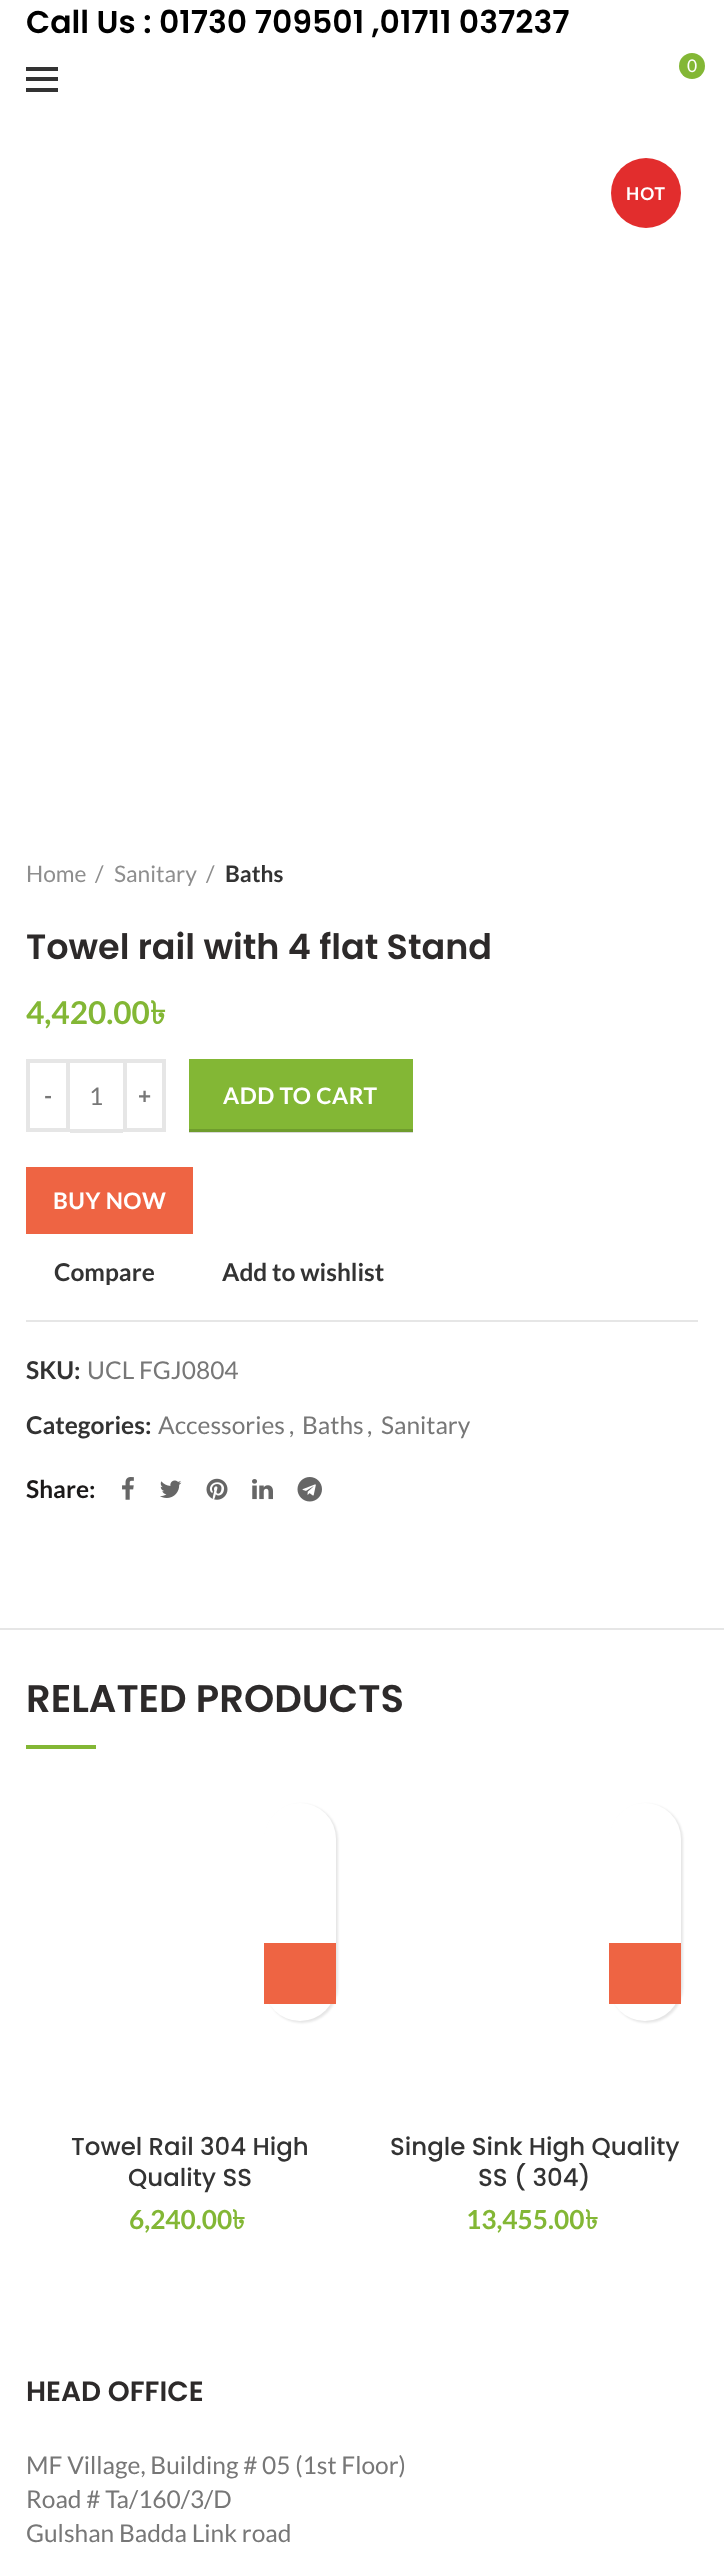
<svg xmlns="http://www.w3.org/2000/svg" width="724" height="2551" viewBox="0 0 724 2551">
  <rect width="100%" height="100%" fill="rgb(255,255,255)"/>
  <rect x="189" y="1132" width="224" height="1" fill="rgb(217,217,217)"/>
  <text x="26" y="33" font-family="Poppins" font-size="31.5" font-weight="600" fill="rgb(0,0,0)">Call Us : 01730 709501 ,01711 037237</text>
  <rect x="26" y="77" width="32" height="4" fill="rgb(51,51,51)"/>
  <rect x="26" y="67" width="32" height="4" fill="rgb(51,51,51)"/>
  <rect x="26" y="88" width="32" height="4" fill="rgb(51,51,51)"/>
  <circle cx="692" cy="66" r="13" fill="rgb(131,183,53)"/>
  <text x="687" y="72" font-family="Lato" font-size="17.5" fill="rgb(255,255,255)">0</text>
  <circle cx="646" cy="193" r="35" fill="rgb(226,45,45)"/>
  <text x="626" y="200" font-family="Lato" font-size="17.5" font-weight="bold" letter-spacing="1" fill="rgb(255,255,255)">HOT</text>
  <g font-family="Lato" font-size="22.75" fill="rgb(142,142,142)">
    <text x="26" y="882">Home</text>
    <text x="95" y="882">/</text>
    <text x="114" y="882">Sanitary</text>
    <text x="206" y="882">/</text>
  </g>
  <text x="225" y="882" font-family="Lato" font-size="22.75" font-weight="bold" fill="rgb(51,51,51)">Baths</text>
  <text x="26" y="959" font-family="Poppins" font-size="35" font-weight="600" fill="rgb(45,42,42)">Towel rail with 4 flat Stand</text>
  <text x="26" y="1024" font-family="Lato" font-size="31.5" font-weight="bold" fill="rgb(131,183,53)">4,420.00</text>
  <text x="150" y="1024" font-family="Lohit Bengali" font-size="31.5" font-weight="bold" fill="rgb(131,183,53)">৳</text>
  <rect x="28" y="1061" width="40" height="69" fill="none" stroke="rgb(230,230,230)" stroke-width="4"/>
  <text x="44" y="1104" font-family="Lato" font-size="22.75" font-weight="bold" letter-spacing="0.5" fill="rgb(119,119,119)">-</text>
  <rect x="70" y="1059" width="53" height="4" fill="rgb(230,230,230)"/>
  <rect x="70" y="1129" width="53" height="4" fill="rgb(230,230,230)"/>
  <text x="89" y="1105" font-family="Lato" font-size="24.5" fill="rgb(119,119,119)">1</text>
  <rect x="125" y="1061" width="39" height="69" fill="none" stroke="rgb(230,230,230)" stroke-width="4"/>
  <text x="138" y="1104" font-family="Lato" font-size="22.75" font-weight="bold" letter-spacing="0.5" fill="rgb(119,119,119)">+</text>
  <rect x="189" y="1059" width="224" height="70" fill="rgb(131,183,53)"/>
  <rect x="189" y="1129" width="224" height="3" fill="rgb(111,156,45)"/>
  <text x="223" y="1104" font-family="Lato" font-size="22.75" font-weight="bold" letter-spacing="0.5" fill="rgb(255,255,255)">ADD TO CART</text>
  <rect x="26" y="1167" width="167" height="67" fill="rgb(238,100,67)"/>
  <text x="53" y="1209" font-family="Lato" font-size="22.75" font-weight="bold" letter-spacing="0.5" fill="rgb(255,255,255)">BUY NOW</text>
  <g font-family="Lato" font-size="24.5" font-weight="bold" fill="rgb(51,51,51)">
    <text x="54" y="1281">Compare</text>
    <text x="222" y="1281">Add to wishlist</text>
  </g>
  <rect x="26" y="1320" width="672" height="2" fill="rgb(230,230,230)"/>
  <text x="26" y="1379" font-family="Lato" font-size="24.5" font-weight="bold" fill="rgb(51,51,51)">SKU:</text>
  <text x="87" y="1379" font-family="Lato" font-size="24.5" fill="rgb(119,119,119)">UCL FGJ0804</text>
  <text x="26" y="1434" font-family="Lato" font-size="24.5" font-weight="bold" fill="rgb(51,51,51)">Categories:</text>
  <g font-family="Lato" font-size="24.5" fill="rgb(119,119,119)">
    <text x="158" y="1434">Accessories</text>
    <text x="289" y="1434">,</text>
    <text x="302" y="1434">Baths</text>
    <text x="367" y="1434">,</text>
    <text x="381" y="1434">Sanitary</text>
  </g>
  <text x="26" y="1498" font-family="Lato" font-size="24.5" font-weight="bold" fill="rgb(27,25,25)">Share:</text>
  <image x="122" y="1477" width="12" height="23" href="pic1.png"/>
  <image x="160" y="1480" width="22" height="18" href="pic2.png"/>
  <image x="206" y="1478" width="22" height="22" href="pic3.png"/>
  <image x="252" y="1479" width="21" height="21" href="pic4.png"/>
  <image x="297" y="1477" width="25" height="25" href="pic5.png"/>
  <rect x="0" y="1628" width="724" height="2" fill="rgb(230,230,230)"/>
  <text x="26" y="1712" font-family="Poppins" font-size="38.5" font-weight="600" fill="rgb(45,42,42)">RELATED PRODUCTS</text>
  <rect x="26" y="1745" width="70" height="4" fill="rgb(131,183,53)"/>
  <rect x="266" y="1804" width="72" height="219" rx="36" fill="rgba(0,0,0,0.1)" filter="blur(1px)"/>
  <rect x="264" y="1803" width="72" height="218" rx="36" fill="rgb(255,255,255)"/>
  <rect x="264" y="1943" width="72" height="61" fill="rgb(238,100,67)"/>
  <g font-family="Poppins" font-size="24.5" font-weight="500" fill="rgb(51,51,51)">
    <text x="71" y="2155">Towel Rail 304 High</text>
    <text x="128" y="2186">Quality SS</text>
  </g>
  <text x="129" y="2229" font-family="Lato" font-size="26.25" font-weight="bold" fill="rgb(131,183,53)">6,240.00</text>
  <text x="232" y="2229" font-family="Lohit Bengali" font-size="26.25" font-weight="bold" fill="rgb(131,183,53)">৳</text>
  <rect x="611" y="1804" width="72" height="219" rx="36" fill="rgba(0,0,0,0.1)" filter="blur(1px)"/>
  <rect x="609" y="1803" width="72" height="218" rx="36" fill="rgb(255,255,255)"/>
  <rect x="609" y="1943" width="72" height="61" fill="rgb(238,100,67)"/>
  <g font-family="Poppins" font-size="24.5" font-weight="500" fill="rgb(51,51,51)">
    <text x="390" y="2155">Single Sink High Quality</text>
    <text x="478" y="2186">SS ( 304)</text>
  </g>
  <text x="466" y="2229" font-family="Lato" font-size="26.25" font-weight="bold" fill="rgb(131,183,53)">13,455.00</text>
  <text x="585" y="2229" font-family="Lohit Bengali" font-size="26.25" font-weight="bold" fill="rgb(131,183,53)">৳</text>
  <text x="26" y="2401" font-family="Poppins" font-size="28" font-weight="600" fill="rgb(45,42,42)">HEAD OFFICE</text>
  <g font-family="Lato" font-size="24.5" fill="rgb(119,119,119)">
    <text>
      <tspan x="26" y="2474">MF Village, Building # 05 (1st Floor)</tspan>
      <tspan x="26" y="2508">Road # Ta/160/3/D</tspan>
      <tspan x="26" y="2542">Gulshan Badda Link road</tspan>
    </text>
  </g>
</svg>
